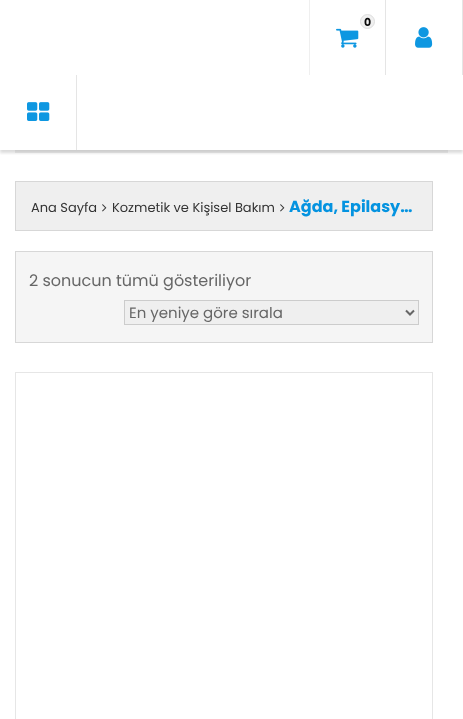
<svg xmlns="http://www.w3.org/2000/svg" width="463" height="719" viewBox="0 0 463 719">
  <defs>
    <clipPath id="clip1"><rect x="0" y="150" width="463" height="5"/></clipPath>
  </defs>
  <rect width="100%" height="100%" fill="rgb(255,255,255)"/>
  <rect x="15" y="150" width="433" height="3" fill="rgb(239,239,239)"/>
  <g clip-path="url(#clip1)">
    <rect x="0" y="3" width="463" height="150" fill="rgba(0,0,0,0.14)" filter="blur(1.5px)"/>
  </g>
  <rect x="385" y="0" width="1" height="75" fill="rgb(229,229,229)"/>
  <rect x="309" y="0" width="1" height="75" fill="rgb(239,239,239)"/>
  <circle cx="367.5" cy="21.5" r="7" fill="rgb(240,240,240)" stroke="rgb(222,222,222)"/>
  <text x="364" y="26" font-family="Poppins" font-size="11" font-weight="bold" fill="rgb(10,10,10)">0</text>
  <image x="336" y="28" width="23" height="20" href="pic1.png"/>
  <rect x="462" y="0" width="1" height="75" fill="rgb(229,229,229)"/>
  <image x="415" y="27" width="18" height="21" href="pic2.png"/>
  <rect x="76" y="75" width="1" height="75" fill="rgba(0,0,0,0.1)"/>
  <image x="27" y="102" width="23" height="19" href="pic3.png"/>
  <rect x="15.5" y="181.5" width="417" height="49" fill="rgb(239,239,239)" stroke="rgb(215,215,215)"/>
  <text x="31" y="212" font-family="Poppins" font-size="13" fill="rgb(51,51,51)">Ana Sayfa</text>
  <image x="102" y="204" width="5" height="8" href="pic4.png"/>
  <text x="112" y="212" font-family="Poppins" font-size="13" fill="rgb(51,51,51)">Kozmetik ve Kişisel Bakım</text>
  <image x="280" y="204" width="5" height="8" href="pic4.png"/>
  <text x="289" y="212" font-family="Poppins" font-size="16" font-weight="bold" fill="rgb(4,147,224)">Ağda, Epilasy…</text>
  <rect x="15.5" y="251.5" width="417" height="91" fill="rgb(245,245,245)" stroke="rgb(215,215,215)"/>
  <text x="29" y="286" font-family="Poppins" font-size="16" fill="rgb(102,102,102)">2 sonucun tümü gösteriliyor</text>
  <rect x="124.5" y="300.5" width="294" height="24" fill="rgb(239,239,239)" stroke="rgb(204,204,204)"/>
  <path d="M406 310.5L410 314.5L414 310.5" fill="none" stroke="rgb(102,102,102)" stroke-width="2"/>
  <text x="129" y="318" font-family="Poppins" font-size="15" fill="rgb(102,102,102)">En yeniye göre sırala</text>
  <rect x="15.5" y="372.5" width="417" height="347" fill="none" stroke="rgb(230,230,230)"/>
</svg>
